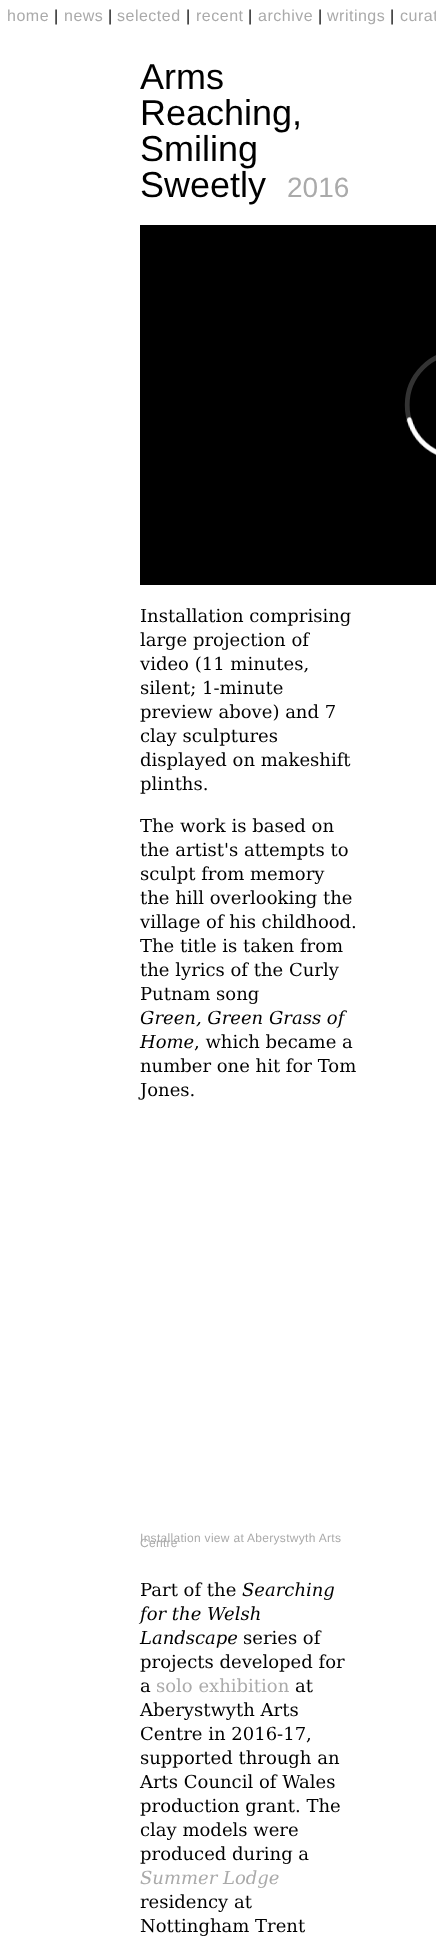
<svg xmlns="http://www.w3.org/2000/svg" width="436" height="1939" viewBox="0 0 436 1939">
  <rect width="100%" height="100%" fill="rgb(255,255,255)"/>
  <text x="7" y="21" font-family="Liberation Sans" font-size="16" letter-spacing="0.5" fill="rgb(170,170,170)">home</text>
  <text x="54" y="21" font-family="Liberation Sans" font-size="16" letter-spacing="0.5" fill="rgb(0,0,0)">|</text>
  <text x="64" y="21" font-family="Liberation Sans" font-size="16" letter-spacing="0.5" fill="rgb(170,170,170)">news</text>
  <text x="108" y="21" font-family="Liberation Sans" font-size="16" letter-spacing="0.5" fill="rgb(0,0,0)">|</text>
  <text x="117" y="21" font-family="Liberation Sans" font-size="16" letter-spacing="0.5" fill="rgb(170,170,170)">selected</text>
  <text x="186" y="21" font-family="Liberation Sans" font-size="16" letter-spacing="0.5" fill="rgb(0,0,0)">|</text>
  <text x="196" y="21" font-family="Liberation Sans" font-size="16" letter-spacing="0.5" fill="rgb(170,170,170)">recent</text>
  <text x="248" y="21" font-family="Liberation Sans" font-size="16" letter-spacing="0.5" fill="rgb(0,0,0)">|</text>
  <text x="258" y="21" font-family="Liberation Sans" font-size="16" letter-spacing="0.5" fill="rgb(170,170,170)">archive</text>
  <text x="318" y="21" font-family="Liberation Sans" font-size="16" letter-spacing="0.5" fill="rgb(0,0,0)">|</text>
  <text x="327" y="21" font-family="Liberation Sans" font-size="16" letter-spacing="0.5" fill="rgb(170,170,170)">writings</text>
  <text x="390" y="21" font-family="Liberation Sans" font-size="16" letter-spacing="0.5" fill="rgb(0,0,0)">|</text>
  <text x="400" y="21" font-family="Liberation Sans" font-size="16" letter-spacing="0.5" fill="rgb(170,170,170)">curat</text>
  <g font-family="Liberation Sans" font-size="36" fill="rgb(0,0,0)">
    <text>
      <tspan x="140" y="89">Arms</tspan>
      <tspan x="140" y="125">Reaching,</tspan>
      <tspan x="140" y="161">Smiling</tspan>
      <tspan x="140" y="197">Sweetly</tspan>
    </text>
  </g>
  <text x="287" y="197" font-family="Liberation Sans" font-size="28" fill="rgb(170,170,170)">2016</text>
  <image x="140" y="225" width="296" height="360" href="pic1.png"/>
  <g font-family="DejaVu Serif" font-size="18" fill="rgb(0,0,0)">
    <text>
      <tspan x="140" y="622">Installation comprising</tspan>
      <tspan x="140" y="646">large projection of</tspan>
      <tspan x="140" y="670">video (11 minutes,</tspan>
      <tspan x="140" y="694">silent; 1-minute</tspan>
      <tspan x="140" y="718">preview above) and 7</tspan>
      <tspan x="140" y="742">clay sculptures</tspan>
      <tspan x="140" y="766">displayed on makeshift</tspan>
      <tspan x="140" y="790">plinths.</tspan>
    </text>
    <text>
      <tspan x="140" y="832">The work is based on</tspan>
      <tspan x="140" y="856">the artist's attempts to</tspan>
      <tspan x="140" y="880">sculpt from memory</tspan>
      <tspan x="140" y="904">the hill overlooking the</tspan>
      <tspan x="140" y="928">village of his childhood.</tspan>
      <tspan x="140" y="952">The title is taken from</tspan>
      <tspan x="140" y="976">the lyrics of the Curly</tspan>
      <tspan x="140" y="1000">Putnam song</tspan>
    </text>
  </g>
  <g font-family="DejaVu Serif" font-size="18" font-style="italic" fill="rgb(0,0,0)">
    <text>
      <tspan x="140" y="1024">Green, Green Grass of</tspan>
      <tspan x="140" y="1048">Home</tspan>
    </text>
  </g>
  <g font-family="DejaVu Serif" font-size="18" fill="rgb(0,0,0)">
    <text x="194" y="1048">, which became a</text>
    <text>
      <tspan x="140" y="1072">number one hit for Tom</tspan>
      <tspan x="140" y="1096">Jones.</tspan>
    </text>
  </g>
  <g font-family="Liberation Sans" font-size="12" letter-spacing="0.3" fill="rgb(170,170,170)">
    <text>
      <tspan x="140" y="1542">Installation view at Aberystwyth Arts</tspan>
      <tspan x="140" y="1547">Centre</tspan>
    </text>
  </g>
  <text x="140" y="1596" font-family="DejaVu Serif" font-size="18" fill="rgb(0,0,0)">Part of the</text>
  <g font-family="DejaVu Serif" font-size="18" font-style="italic" fill="rgb(0,0,0)">
    <text x="242" y="1596">Searching</text>
    <text>
      <tspan x="140" y="1620">for the Welsh</tspan>
      <tspan x="140" y="1644">Landscape</tspan>
    </text>
  </g>
  <g font-family="DejaVu Serif" font-size="18" fill="rgb(0,0,0)">
    <text x="243" y="1644">series of</text>
    <text>
      <tspan x="140" y="1668">projects developed for</tspan>
      <tspan x="140" y="1692">a</tspan>
    </text>
  </g>
  <text x="156" y="1692" font-family="DejaVu Serif" font-size="18" fill="rgb(170,170,170)">solo exhibition</text>
  <g font-family="DejaVu Serif" font-size="18" fill="rgb(0,0,0)">
    <text x="295" y="1692">at</text>
    <text>
      <tspan x="140" y="1716">Aberystwyth Arts</tspan>
      <tspan x="140" y="1740">Centre in 2016-17,</tspan>
      <tspan x="140" y="1764">supported through an</tspan>
      <tspan x="140" y="1788">Arts Council of Wales</tspan>
      <tspan x="140" y="1812">production grant. The</tspan>
      <tspan x="140" y="1836">clay models were</tspan>
      <tspan x="140" y="1860">produced during a</tspan>
    </text>
  </g>
  <text x="140" y="1884" font-family="DejaVu Serif" font-size="18" font-style="italic" fill="rgb(170,170,170)">Summer Lodge</text>
  <g font-family="DejaVu Serif" font-size="18" fill="rgb(0,0,0)">
    <text>
      <tspan x="140" y="1908">residency at</tspan>
      <tspan x="140" y="1932">Nottingham Trent</tspan>
    </text>
  </g>
</svg>
